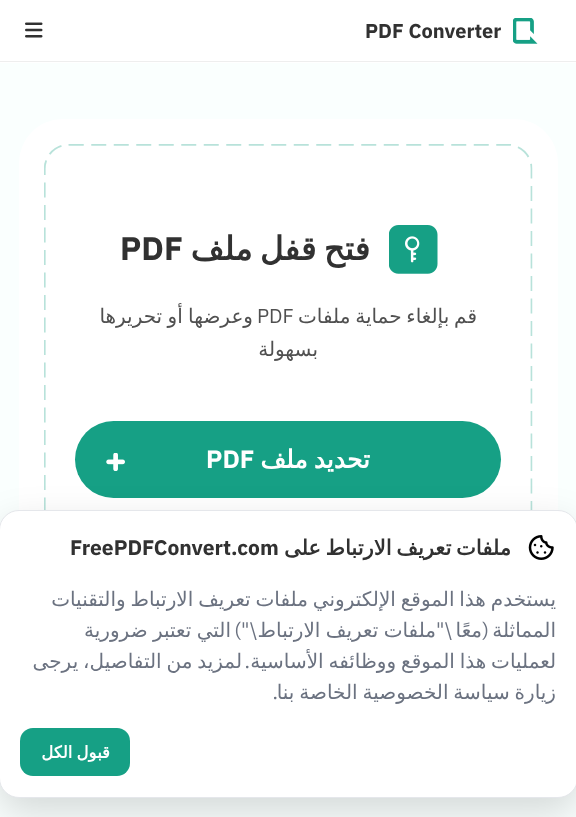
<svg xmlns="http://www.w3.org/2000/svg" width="576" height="817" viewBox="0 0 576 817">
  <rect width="100%" height="100%" fill="rgb(255,255,255)"/>
  <rect x="0" y="61" width="576" height="1" fill="rgb(238,238,238)"/>
  <image x="513" y="18" width="25" height="26" href="pic1.png"/>
  <text x="365" y="38" font-family="IBM Plex Sans" font-size="20" font-weight="bold" fill="rgb(49,49,49)">PDF Converter</text>
  <image x="25" y="22" width="18" height="16" href="pic2.png"/>
  <rect x="0" y="63" width="576" height="461" fill="rgb(250,255,254)"/>
  <rect x="19" y="119" width="539" height="574" rx="44" fill="rgb(255,255,255)"/>
  <image x="389" y="225" width="49" height="49" href="pic4.png"/>
  <text x="370" y="260" word-spacing="-3" font-family="DejaVu Sans" font-size="32.5" font-weight="bold" direction="rtl" fill="rgb(49,49,49)">فتح قفل ملف</text>
  <text x="120" y="260" font-family="IBM Plex Sans" font-size="32.5" font-weight="bold" fill="rgb(49,49,49)">PDF</text>
  <text x="477" y="323" word-spacing="-1.5" font-family="DejaVu Sans" font-size="20" direction="rtl" fill="rgb(80,80,80)">قم بإلغاء حماية ملفات</text>
  <text x="257" y="323" font-family="IBM Plex Sans" font-size="20" fill="rgb(80,80,80)">PDF</text>
  <g font-family="DejaVu Sans" font-size="20" direction="rtl" fill="rgb(80,80,80)">
    <text x="253" y="323" word-spacing="-1">وعرضها أو تحريرها</text>
    <text x="318" y="356">بسهولة</text>
  </g>
  <image x="44" y="144" width="489" height="366" href="pic3.png"/>
  <rect x="75" y="421" width="426" height="77" rx="38.5" fill="rgb(22,160,133)"/>
  <text x="370" y="468" word-spacing="-2" font-family="DejaVu Sans" font-size="25" font-weight="bold" direction="rtl" fill="rgb(255,255,255)">تحديد ملف</text>
  <text x="206" y="468" font-family="IBM Plex Sans" font-size="25" font-weight="bold" fill="rgb(255,255,255)">PDF</text>
  <image x="106" y="453" width="19" height="18" href="pic5.png"/>
  <rect x="0" y="784" width="576" height="33" fill="rgb(250,255,254)"/>
  <rect x="-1" y="525" width="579" height="288" rx="20" fill="rgba(0,0,0,0.15)" filter="blur(19px)"/>
  <rect x="-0.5" y="510.5" width="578" height="287" rx="19.5" fill="rgb(255,255,255)" stroke="rgb(229,231,235)"/>
  <image x="528" y="535" width="26" height="25" href="pic6.png"/>
  <text x="511" y="555" word-spacing="-2" font-family="DejaVu Sans" font-size="21" font-weight="bold" direction="rtl" fill="rgb(49,49,49)">ملفات تعريف الارتباط على</text>
  <text x="70" y="555" font-family="IBM Plex Sans" font-size="21" font-weight="bold" fill="rgb(49,49,49)">FreePDFConvert.com</text>
  <g font-family="DejaVu Sans" font-size="20" direction="rtl" fill="rgb(107,114,128)">
    <text>
      <tspan x="556" y="606" word-spacing="-1.5">يستخدم هذا الموقع الإلكتروني ملفات تعريف الارتباط والتقنيات</tspan>
      <tspan x="556" y="637">المماثلة</tspan>
    </text>
  </g>
  <text x="489" y="637" font-family="IBM Plex Sans" font-size="20" direction="rtl" fill="rgb(107,114,128)">(</text>
  <text x="482" y="637" font-family="DejaVu Sans" font-size="20" direction="rtl" fill="rgb(107,114,128)">معًا</text>
  <text x="452" y="637" font-family="IBM Plex Sans" font-size="20" direction="rtl" fill="rgb(107,114,128)">\"</text>
  <text x="436" y="637" word-spacing="-1" font-family="DejaVu Sans" font-size="20" direction="rtl" fill="rgb(107,114,128)">ملفات تعريف الارتباط</text>
  <text x="257" y="637" font-family="IBM Plex Sans" font-size="20" direction="rtl" fill="rgb(107,114,128)">\")</text>
  <g font-family="DejaVu Sans" font-size="20" direction="rtl" fill="rgb(107,114,128)">
    <text x="231" y="637" word-spacing="-1">التي تعتبر ضرورية</text>
    <text x="556" y="668" word-spacing="-1.5">لعمليات هذا الموقع ووظائفه الأساسية</text>
  </g>
  <text x="250" y="668" font-family="IBM Plex Sans" font-size="20" direction="rtl" fill="rgb(107,114,128)">.</text>
  <g font-family="DejaVu Sans" font-size="20" direction="rtl" fill="rgb(107,114,128)">
    <text x="242" y="668" word-spacing="-1.5">لمزيد من التفاصيل، يرجى</text>
    <text x="556" y="699" word-spacing="-1.5">زيارة سياسة الخصوصية الخاصة بنا</text>
  </g>
  <text x="278" y="699" font-family="IBM Plex Sans" font-size="20" direction="rtl" fill="rgb(107,114,128)">.</text>
  <rect x="20" y="728" width="110" height="48" rx="13" fill="rgb(22,160,133)"/>
  <text x="110" y="758" word-spacing="-1" font-family="DejaVu Sans" font-size="16.5" font-weight="bold" direction="rtl" fill="rgb(255,255,255)">قبول الكل</text>
</svg>
